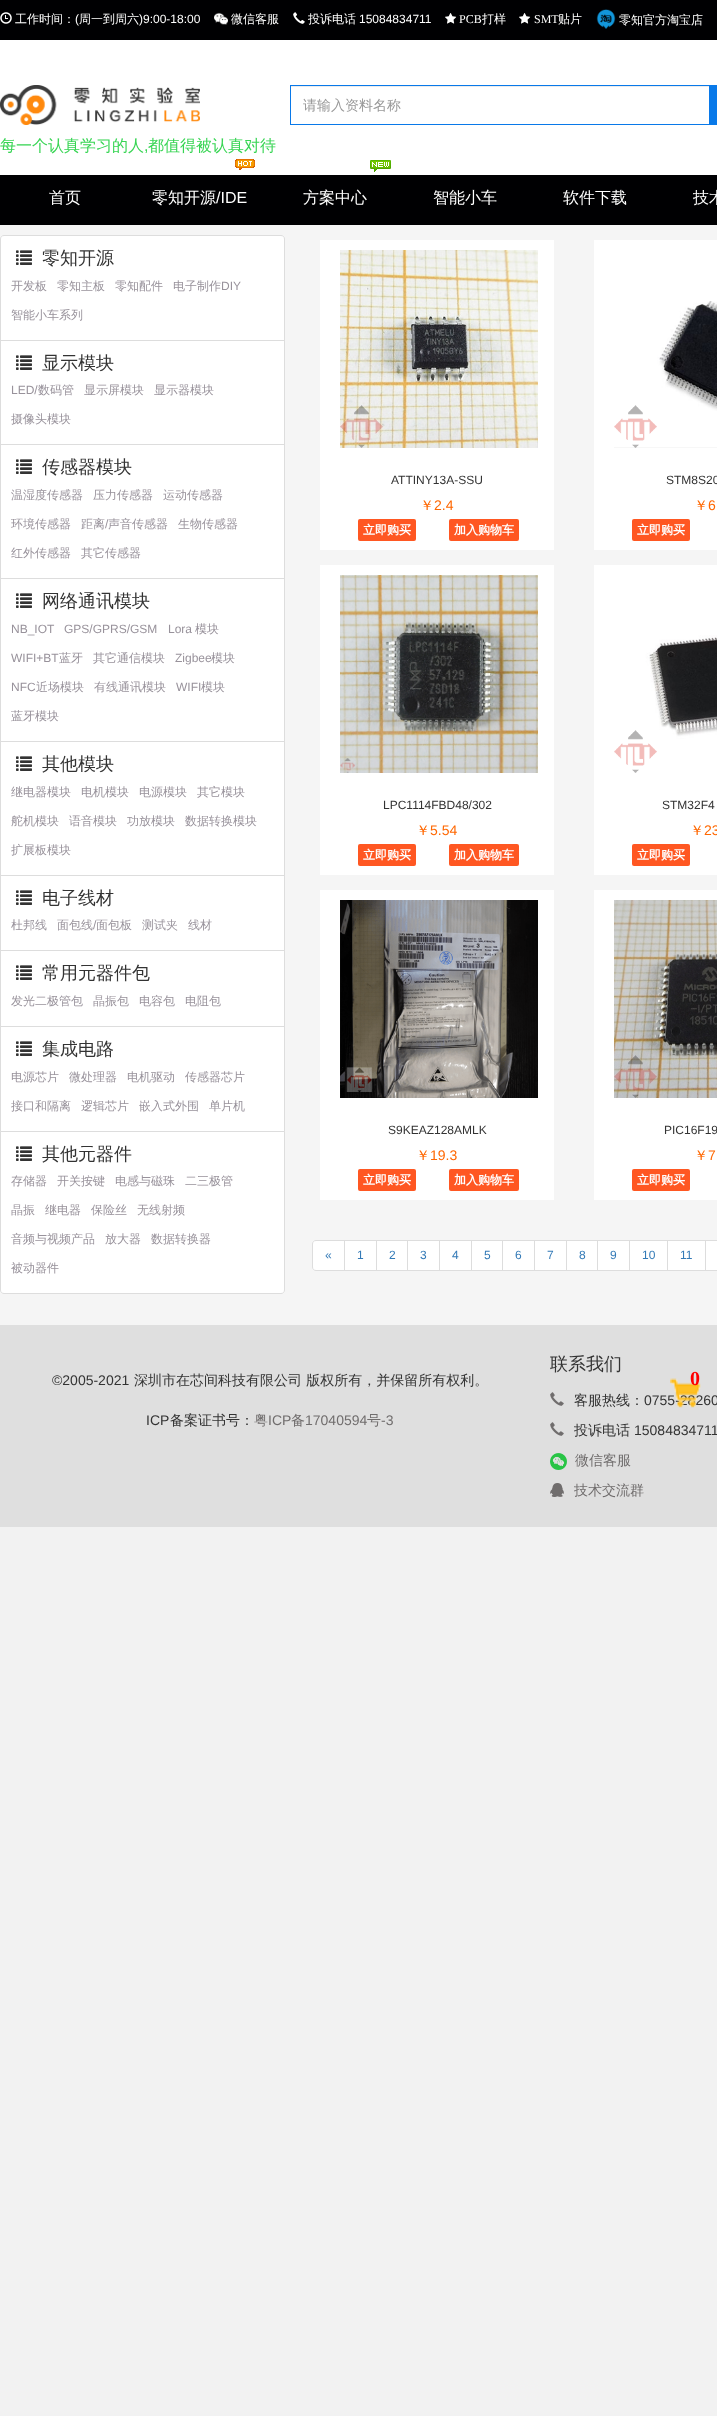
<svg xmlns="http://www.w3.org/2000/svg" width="717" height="2416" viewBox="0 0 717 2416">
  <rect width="100%" height="100%" fill="rgb(242,242,242)"/>
  <rect x="0" y="40" width="717" height="135" fill="rgb(255,255,255)"/>
  <rect x="0" y="0" width="717" height="40" fill="rgb(0,0,2)"/>
  <image x="0" y="12" width="12" height="12" href="pic1.png"/>
  <text x="15" y="23" font-family="WenQuanYi Zen Hei" font-size="12" font-weight="500" fill="rgb(255,255,255)">工作时间：</text>
  <text x="75" y="23" font-family="Liberation Sans" font-size="12" fill="rgb(255,255,255)">(</text>
  <text x="79" y="23" font-family="WenQuanYi Zen Hei" font-size="12" font-weight="500" fill="rgb(255,255,255)">周一到周六</text>
  <text x="139" y="23" font-family="Liberation Sans" font-size="12" fill="rgb(255,255,255)">)9:00-18:00</text>
  <image x="214" y="12" width="14" height="13" href="pic2.png"/>
  <text x="231" y="23" font-family="WenQuanYi Zen Hei" font-size="12" font-weight="500" fill="rgb(255,255,255)">微信客服</text>
  <image x="293" y="12" width="12" height="12" href="pic3.png"/>
  <text x="308" y="23" font-family="WenQuanYi Zen Hei" font-size="12" font-weight="500" fill="rgb(255,255,255)">投诉电话</text>
  <text x="359" y="23" font-family="Liberation Sans" font-size="12" fill="rgb(255,255,255)">15084834711</text>
  <image x="445" y="13" width="12" height="11" href="pic4.png"/>
  <text x="459" y="23" font-family="Liberation Serif" font-size="12" fill="rgb(255,255,255)">PCB</text>
  <text x="482" y="23" font-family="WenQuanYi Zen Hei" font-size="12" font-weight="500" fill="rgb(255,255,255)">打样</text>
  <image x="519" y="13" width="12" height="11" href="pic4.png"/>
  <text x="534" y="23" font-family="Liberation Serif" font-size="12" fill="rgb(255,255,255)">SMT</text>
  <text x="558" y="23" font-family="WenQuanYi Zen Hei" font-size="12" font-weight="500" fill="rgb(255,255,255)">贴片</text>
  <image x="596" y="9" width="20" height="20" href="pic5.png"/>
  <text x="619" y="24" font-family="WenQuanYi Zen Hei" font-size="12" font-weight="500" fill="rgb(255,255,255)">零知官方淘宝店</text>
  <image x="0" y="85" width="200" height="40" href="pic6.png"/>
  <rect x="291" y="86" width="418" height="1" fill="rgb(236,236,236)"/>
  <rect x="290.5" y="85.5" width="419" height="39" fill="none" stroke="rgb(9,121,233)"/>
  <text x="303" y="110" font-family="WenQuanYi Zen Hei" font-size="14" font-weight="500" fill="rgb(153,153,153)">请输入资料名称</text>
  <rect x="710" y="85" width="7" height="40" fill="rgb(9,121,233)"/>
  <text x="0" y="151" font-family="WenQuanYi Zen Hei" font-size="16" font-weight="500" fill="rgb(56,213,84)">每一个认真学习的人</text>
  <text x="144" y="151" font-family="Liberation Sans" font-size="16" fill="rgb(56,213,84)">,</text>
  <text x="148" y="151" font-family="WenQuanYi Zen Hei" font-size="16" font-weight="500" fill="rgb(56,213,84)">都值得被认真对待</text>
  <rect x="0" y="175" width="717" height="50" fill="rgb(0,0,2)"/>
  <text x="49" y="203" font-family="WenQuanYi Zen Hei" font-size="16" font-weight="500" fill="rgb(255,255,255)">首页</text>
  <image x="235" y="159" width="20" height="11" href="pic7.png"/>
  <text x="152" y="203" font-family="WenQuanYi Zen Hei" font-size="16" font-weight="500" fill="rgb(255,255,255)">零知开源</text>
  <text x="216" y="203" font-family="Liberation Sans" font-size="16" fill="rgb(255,255,255)">/IDE</text>
  <image x="370" y="160" width="21" height="12" href="pic8.png"/>
  <g font-family="WenQuanYi Zen Hei" font-size="16" font-weight="500" fill="rgb(255,255,255)">
    <text x="303" y="203">方案中心</text>
    <text x="433" y="203">智能小车</text>
    <text x="563" y="203">软件下载</text>
    <text x="693" y="203">技术</text>
  </g>
  <rect x="0" y="225" width="717" height="1100" fill="rgb(245,245,245)"/>
  <path d="M4 235.5H281C283 235.5 284.5 237 284.5 239V340.5H.5V239C.5 237 2 235.5 4 235.5Z" fill="rgb(255,255,255)" stroke="rgb(221,221,221)"/>
  <image x="16" y="250" width="16" height="15" href="pic9.png"/>
  <text x="42" y="264" font-family="WenQuanYi Zen Hei" font-size="18" font-weight="500" fill="rgb(51,51,51)">零知开源</text>
  <g font-family="WenQuanYi Zen Hei" font-size="12" font-weight="500" fill="rgb(152,146,155)">
    <text x="11" y="290">开发板</text>
    <text x="57" y="290">零知主板</text>
    <text x="115" y="290">零知配件</text>
    <text x="173" y="290">电子制作</text>
  </g>
  <text x="221" y="290" font-family="Liberation Sans" font-size="12" fill="rgb(152,146,155)">DIY</text>
  <text x="11" y="319" font-family="WenQuanYi Zen Hei" font-size="12" font-weight="500" fill="rgb(152,146,155)">智能小车系列</text>
  <rect x="0.5" y="340.5" width="284" height="104" fill="rgb(255,255,255)" stroke="rgb(221,221,221)"/>
  <image x="16" y="355" width="16" height="15" href="pic9.png"/>
  <text x="42" y="369" font-family="WenQuanYi Zen Hei" font-size="18" font-weight="500" fill="rgb(51,51,51)">显示模块</text>
  <text x="11" y="394" font-family="Liberation Sans" font-size="12" fill="rgb(152,146,155)">LED/</text>
  <g font-family="WenQuanYi Zen Hei" font-size="12" font-weight="500" fill="rgb(152,146,155)">
    <text x="38" y="394">数码管</text>
    <text x="84" y="394">显示屏模块</text>
    <text x="154" y="394">显示器模块</text>
    <text x="11" y="423">摄像头模块</text>
  </g>
  <rect x="0.5" y="444.5" width="284" height="134" fill="rgb(255,255,255)" stroke="rgb(221,221,221)"/>
  <image x="16" y="459" width="16" height="15" href="pic9.png"/>
  <text x="42" y="473" font-family="WenQuanYi Zen Hei" font-size="18" font-weight="500" fill="rgb(51,51,51)">传感器模块</text>
  <g font-family="WenQuanYi Zen Hei" font-size="12" font-weight="500" fill="rgb(152,146,155)">
    <text x="11" y="499">温湿度传感器</text>
    <text x="93" y="499">压力传感器</text>
    <text x="163" y="499">运动传感器</text>
    <text x="11" y="528">环境传感器</text>
    <text x="81" y="528">距离</text>
  </g>
  <text x="105" y="528" font-family="Liberation Sans" font-size="12" fill="rgb(152,146,155)">/</text>
  <g font-family="WenQuanYi Zen Hei" font-size="12" font-weight="500" fill="rgb(152,146,155)">
    <text x="108" y="528">声音传感器</text>
    <text x="178" y="528">生物传感器</text>
    <text x="11" y="557">红外传感器</text>
    <text x="81" y="557">其它传感器</text>
  </g>
  <rect x="0.5" y="578.5" width="284" height="163" fill="rgb(255,255,255)" stroke="rgb(221,221,221)"/>
  <image x="16" y="593" width="16" height="15" href="pic9.png"/>
  <text x="42" y="607" font-family="WenQuanYi Zen Hei" font-size="18" font-weight="500" fill="rgb(51,51,51)">网络通讯模块</text>
  <g font-family="Liberation Sans" font-size="12" fill="rgb(152,146,155)">
    <text x="11" y="633">NB_IOT</text>
    <text x="64" y="633">GPS/GPRS/GSM</text>
    <text x="168" y="633">Lora</text>
  </g>
  <text x="195" y="633" font-family="WenQuanYi Zen Hei" font-size="12" font-weight="500" fill="rgb(152,146,155)">模块</text>
  <text x="11" y="662" font-family="Liberation Sans" font-size="12" fill="rgb(152,146,155)">WIFI+BT</text>
  <g font-family="WenQuanYi Zen Hei" font-size="12" font-weight="500" fill="rgb(152,146,155)">
    <text x="59" y="662">蓝牙</text>
    <text x="93" y="662">其它通信模块</text>
  </g>
  <text x="175" y="662" font-family="Liberation Sans" font-size="12" fill="rgb(152,146,155)">Zigbee</text>
  <text x="211" y="662" font-family="WenQuanYi Zen Hei" font-size="12" font-weight="500" fill="rgb(152,146,155)">模块</text>
  <text x="11" y="691" font-family="Liberation Sans" font-size="12" fill="rgb(152,146,155)">NFC</text>
  <g font-family="WenQuanYi Zen Hei" font-size="12" font-weight="500" fill="rgb(152,146,155)">
    <text x="36" y="691">近场模块</text>
    <text x="94" y="691">有线通讯模块</text>
  </g>
  <text x="176" y="691" font-family="Liberation Sans" font-size="12" fill="rgb(152,146,155)">WIFI</text>
  <g font-family="WenQuanYi Zen Hei" font-size="12" font-weight="500" fill="rgb(152,146,155)">
    <text x="201" y="691">模块</text>
    <text x="11" y="720">蓝牙模块</text>
  </g>
  <rect x="0.5" y="741.5" width="284" height="134" fill="rgb(255,255,255)" stroke="rgb(221,221,221)"/>
  <image x="16" y="756" width="16" height="15" href="pic9.png"/>
  <text x="42" y="770" font-family="WenQuanYi Zen Hei" font-size="18" font-weight="500" fill="rgb(51,51,51)">其他模块</text>
  <g font-family="WenQuanYi Zen Hei" font-size="12" font-weight="500" fill="rgb(152,146,155)">
    <text x="11" y="796">继电器模块</text>
    <text x="81" y="796">电机模块</text>
    <text x="139" y="796">电源模块</text>
    <text x="197" y="796">其它模块</text>
    <text x="11" y="825">舵机模块</text>
    <text x="69" y="825">语音模块</text>
    <text x="127" y="825">功放模块</text>
    <text x="185" y="825">数据转换模块</text>
    <text x="11" y="854">扩展板模块</text>
  </g>
  <rect x="0.5" y="875.5" width="284" height="75" fill="rgb(255,255,255)" stroke="rgb(221,221,221)"/>
  <image x="16" y="890" width="16" height="15" href="pic9.png"/>
  <text x="42" y="904" font-family="WenQuanYi Zen Hei" font-size="18" font-weight="500" fill="rgb(51,51,51)">电子线材</text>
  <g font-family="WenQuanYi Zen Hei" font-size="12" font-weight="500" fill="rgb(152,146,155)">
    <text x="11" y="929">杜邦线</text>
    <text x="57" y="929">面包线</text>
  </g>
  <text x="93" y="929" font-family="Liberation Sans" font-size="12" fill="rgb(152,146,155)">/</text>
  <g font-family="WenQuanYi Zen Hei" font-size="12" font-weight="500" fill="rgb(152,146,155)">
    <text x="96" y="929">面包板</text>
    <text x="142" y="929">测试夹</text>
    <text x="188" y="929">线材</text>
  </g>
  <rect x="0.5" y="950.5" width="284" height="76" fill="rgb(255,255,255)" stroke="rgb(221,221,221)"/>
  <image x="16" y="965" width="16" height="15" href="pic9.png"/>
  <text x="42" y="979" font-family="WenQuanYi Zen Hei" font-size="18" font-weight="500" fill="rgb(51,51,51)">常用元器件包</text>
  <g font-family="WenQuanYi Zen Hei" font-size="12" font-weight="500" fill="rgb(152,146,155)">
    <text x="11" y="1005">发光二极管包</text>
    <text x="93" y="1005">晶振包</text>
    <text x="139" y="1005">电容包</text>
    <text x="185" y="1005">电阻包</text>
  </g>
  <rect x="0.5" y="1026.5" width="284" height="105" fill="rgb(255,255,255)" stroke="rgb(221,221,221)"/>
  <image x="16" y="1041" width="16" height="15" href="pic9.png"/>
  <text x="42" y="1055" font-family="WenQuanYi Zen Hei" font-size="18" font-weight="500" fill="rgb(51,51,51)">集成电路</text>
  <g font-family="WenQuanYi Zen Hei" font-size="12" font-weight="500" fill="rgb(152,146,155)">
    <text x="11" y="1081">电源芯片</text>
    <text x="69" y="1081">微处理器</text>
    <text x="127" y="1081">电机驱动</text>
    <text x="185" y="1081">传感器芯片</text>
    <text x="11" y="1110">接口和隔离</text>
    <text x="81" y="1110">逻辑芯片</text>
    <text x="139" y="1110">嵌入式外围</text>
    <text x="209" y="1110">单片机</text>
  </g>
  <path d="M.5 1131.5H284.5V1290C284.5 1292 283 1293.5 281 1293.5H4C2 1293.5 .5 1292 .5 1290Z" fill="rgb(255,255,255)" stroke="rgb(221,221,221)"/>
  <image x="16" y="1146" width="16" height="15" href="pic9.png"/>
  <text x="42" y="1160" font-family="WenQuanYi Zen Hei" font-size="18" font-weight="500" fill="rgb(51,51,51)">其他元器件</text>
  <g font-family="WenQuanYi Zen Hei" font-size="12" font-weight="500" fill="rgb(152,146,155)">
    <text x="11" y="1185">存储器</text>
    <text x="57" y="1185">开关按键</text>
    <text x="115" y="1185">电感与磁珠</text>
    <text x="185" y="1185">二三极管</text>
    <text x="11" y="1214">晶振</text>
    <text x="45" y="1214">继电器</text>
    <text x="91" y="1214">保险丝</text>
    <text x="137" y="1214">无线射频</text>
    <text x="11" y="1243">音频与视频产品</text>
    <text x="105" y="1243">放大器</text>
    <text x="151" y="1243">数据转换器</text>
    <text x="11" y="1272">被动器件</text>
  </g>
  <rect x="320" y="240" width="234" height="310" fill="rgb(255,255,255)"/>
  <image x="340" y="250" width="198" height="198" href="pic10.png"/>
  <text x="391" y="484" font-family="Liberation Sans" font-size="12" fill="rgb(51,51,51)">ATTINY13A-SSU</text>
  <text x="420" y="510" font-family="WenQuanYi Zen Hei" font-size="14" font-weight="500" fill="rgb(255,103,0)">￥</text>
  <text x="434" y="510" font-family="Liberation Sans" font-size="14" fill="rgb(255,103,0)">2.4</text>
  <rect x="358" y="519" width="58" height="22" rx="2" fill="rgb(255,87,34)"/>
  <text x="363" y="534" font-family="WenQuanYi Zen Hei" font-size="12" font-weight="bold" fill="rgb(255,255,255)">立即购买</text>
  <rect x="449" y="519" width="70" height="22" rx="2" fill="rgb(255,87,34)"/>
  <text x="454" y="534" font-family="WenQuanYi Zen Hei" font-size="12" font-weight="bold" fill="rgb(255,255,255)">加入购物车</text>
  <rect x="594" y="240" width="123" height="310" fill="rgb(255,255,255)"/>
  <image x="614" y="301" width="103" height="147" href="pic11.png"/>
  <text x="666" y="484" font-family="Liberation Sans" font-size="12" fill="rgb(51,51,51)">STM8S20</text>
  <text x="694" y="510" font-family="WenQuanYi Zen Hei" font-size="14" font-weight="500" fill="rgb(255,103,0)">￥</text>
  <text x="708" y="510" font-family="Liberation Sans" font-size="14" fill="rgb(255,103,0)">6</text>
  <rect x="632" y="519" width="58" height="22" rx="2" fill="rgb(255,87,34)"/>
  <text x="637" y="534" font-family="WenQuanYi Zen Hei" font-size="12" font-weight="bold" fill="rgb(255,255,255)">立即购买</text>
  <rect x="320" y="565" width="234" height="310" fill="rgb(255,255,255)"/>
  <image x="340" y="575" width="198" height="198" href="pic12.png"/>
  <text x="383" y="809" font-family="Liberation Sans" font-size="12" fill="rgb(51,51,51)">LPC1114FBD48/302</text>
  <text x="416" y="835" font-family="WenQuanYi Zen Hei" font-size="14" font-weight="500" fill="rgb(255,103,0)">￥</text>
  <text x="430" y="835" font-family="Liberation Sans" font-size="14" fill="rgb(255,103,0)">5.54</text>
  <rect x="358" y="844" width="58" height="22" rx="2" fill="rgb(255,87,34)"/>
  <text x="363" y="859" font-family="WenQuanYi Zen Hei" font-size="12" font-weight="bold" fill="rgb(255,255,255)">立即购买</text>
  <rect x="449" y="844" width="70" height="22" rx="2" fill="rgb(255,87,34)"/>
  <text x="454" y="859" font-family="WenQuanYi Zen Hei" font-size="12" font-weight="bold" fill="rgb(255,255,255)">加入购物车</text>
  <rect x="594" y="565" width="123" height="310" fill="rgb(255,255,255)"/>
  <image x="614" y="635" width="103" height="138" href="pic13.png"/>
  <text x="662" y="809" font-family="Liberation Sans" font-size="12" fill="rgb(51,51,51)">STM32F4</text>
  <text x="690" y="835" font-family="WenQuanYi Zen Hei" font-size="14" font-weight="500" fill="rgb(255,103,0)">￥</text>
  <text x="704" y="835" font-family="Liberation Sans" font-size="14" fill="rgb(255,103,0)">23</text>
  <rect x="632" y="844" width="58" height="22" rx="2" fill="rgb(255,87,34)"/>
  <text x="637" y="859" font-family="WenQuanYi Zen Hei" font-size="12" font-weight="bold" fill="rgb(255,255,255)">立即购买</text>
  <rect x="320" y="890" width="234" height="310" fill="rgb(255,255,255)"/>
  <image x="340" y="900" width="198" height="198" href="pic14.png"/>
  <text x="388" y="1134" font-family="Liberation Sans" font-size="12" fill="rgb(51,51,51)">S9KEAZ128AMLK</text>
  <text x="416" y="1160" font-family="WenQuanYi Zen Hei" font-size="14" font-weight="500" fill="rgb(255,103,0)">￥</text>
  <text x="430" y="1160" font-family="Liberation Sans" font-size="14" fill="rgb(255,103,0)">19.3</text>
  <rect x="358" y="1169" width="58" height="22" rx="2" fill="rgb(255,87,34)"/>
  <text x="363" y="1184" font-family="WenQuanYi Zen Hei" font-size="12" font-weight="bold" fill="rgb(255,255,255)">立即购买</text>
  <rect x="449" y="1169" width="70" height="22" rx="2" fill="rgb(255,87,34)"/>
  <text x="454" y="1184" font-family="WenQuanYi Zen Hei" font-size="12" font-weight="bold" fill="rgb(255,255,255)">加入购物车</text>
  <rect x="594" y="890" width="123" height="310" fill="rgb(255,255,255)"/>
  <image x="614" y="900" width="103" height="198" href="pic15.png"/>
  <text x="664" y="1134" font-family="Liberation Sans" font-size="12" fill="rgb(51,51,51)">PIC16F19</text>
  <text x="694" y="1160" font-family="WenQuanYi Zen Hei" font-size="14" font-weight="500" fill="rgb(255,103,0)">￥</text>
  <text x="708" y="1160" font-family="Liberation Sans" font-size="14" fill="rgb(255,103,0)">7</text>
  <rect x="632" y="1169" width="58" height="22" rx="2" fill="rgb(255,87,34)"/>
  <text x="637" y="1184" font-family="WenQuanYi Zen Hei" font-size="12" font-weight="bold" fill="rgb(255,255,255)">立即购买</text>
  <path d="M316 1240.5H344.5V1270.5H316C314 1270.5 312.5 1269 312.5 1267V1244C312.5 1242 314 1240.5 316 1240.5Z" fill="rgb(255,255,255)" stroke="rgb(221,221,221)"/>
  <text x="325" y="1259" font-family="Liberation Sans" font-size="12" fill="rgb(51,122,183)">«</text>
  <rect x="344.5" y="1240.5" width="32" height="30" fill="rgb(255,255,255)" stroke="rgb(221,221,221)"/>
  <text x="357" y="1259" font-family="Liberation Sans" font-size="12" fill="rgb(51,122,183)">1</text>
  <rect x="376.5" y="1240.5" width="31" height="30" fill="rgb(255,255,255)" stroke="rgb(221,221,221)"/>
  <text x="389" y="1259" font-family="Liberation Sans" font-size="12" fill="rgb(51,122,183)">2</text>
  <rect x="407.5" y="1240.5" width="32" height="30" fill="rgb(255,255,255)" stroke="rgb(221,221,221)"/>
  <text x="420" y="1259" font-family="Liberation Sans" font-size="12" fill="rgb(51,122,183)">3</text>
  <rect x="439.5" y="1240.5" width="32" height="30" fill="rgb(255,255,255)" stroke="rgb(221,221,221)"/>
  <text x="452" y="1259" font-family="Liberation Sans" font-size="12" fill="rgb(51,122,183)">4</text>
  <rect x="471.5" y="1240.5" width="31" height="30" fill="rgb(255,255,255)" stroke="rgb(221,221,221)"/>
  <text x="484" y="1259" font-family="Liberation Sans" font-size="12" fill="rgb(51,122,183)">5</text>
  <rect x="502.5" y="1240.5" width="32" height="30" fill="rgb(255,255,255)" stroke="rgb(221,221,221)"/>
  <text x="515" y="1259" font-family="Liberation Sans" font-size="12" fill="rgb(51,122,183)">6</text>
  <rect x="534.5" y="1240.5" width="32" height="30" fill="rgb(255,255,255)" stroke="rgb(221,221,221)"/>
  <text x="547" y="1259" font-family="Liberation Sans" font-size="12" fill="rgb(51,122,183)">7</text>
  <rect x="566.5" y="1240.5" width="31" height="30" fill="rgb(255,255,255)" stroke="rgb(221,221,221)"/>
  <text x="579" y="1259" font-family="Liberation Sans" font-size="12" fill="rgb(51,122,183)">8</text>
  <rect x="597.5" y="1240.5" width="32" height="30" fill="rgb(255,255,255)" stroke="rgb(221,221,221)"/>
  <text x="610" y="1259" font-family="Liberation Sans" font-size="12" fill="rgb(51,122,183)">9</text>
  <rect x="629.5" y="1240.5" width="38" height="30" fill="rgb(255,255,255)" stroke="rgb(221,221,221)"/>
  <text x="642" y="1259" font-family="Liberation Sans" font-size="12" fill="rgb(51,122,183)">10</text>
  <rect x="667.5" y="1240.5" width="38" height="30" fill="rgb(255,255,255)" stroke="rgb(221,221,221)"/>
  <text x="680" y="1259" font-family="Liberation Sans" font-size="12" fill="rgb(51,122,183)">11</text>
  <rect x="705.5" y="1240.5" width="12" height="30" fill="rgb(255,255,255)" stroke="rgb(221,221,221)"/>
  <rect x="0" y="1325" width="717" height="202" fill="rgb(223,223,223)"/>
  <text x="52" y="1385" font-family="Liberation Sans" font-size="14" fill="rgb(51,51,51)">©2005-2021</text>
  <text x="134" y="1385" font-family="WenQuanYi Zen Hei" font-size="14" font-weight="500" fill="rgb(51,51,51)">深圳市在芯间科技有限公司 版权所有，并保留所有权利。</text>
  <text x="146" y="1425" font-family="Liberation Sans" font-size="14" fill="rgb(51,51,51)">ICP</text>
  <text x="170" y="1425" font-family="WenQuanYi Zen Hei" font-size="14" font-weight="500" fill="rgb(51,51,51)">备案证书号：</text>
  <text x="254" y="1425" font-family="WenQuanYi Zen Hei" font-size="14" font-weight="500" fill="rgb(112,109,109)">粤</text>
  <text x="268" y="1425" font-family="Liberation Sans" font-size="14" fill="rgb(112,109,109)">ICP</text>
  <text x="291" y="1425" font-family="WenQuanYi Zen Hei" font-size="14" font-weight="500" fill="rgb(112,109,109)">备</text>
  <text x="305" y="1425" font-family="Liberation Sans" font-size="14" fill="rgb(112,109,109)">17040594</text>
  <text x="367" y="1425" font-family="WenQuanYi Zen Hei" font-size="14" font-weight="500" fill="rgb(112,109,109)">号</text>
  <text x="381" y="1425" font-family="Liberation Sans" font-size="14" fill="rgb(112,109,109)">-3</text>
  <text x="550" y="1370" font-family="WenQuanYi Zen Hei" font-size="18" font-weight="500" fill="rgb(51,51,51)">联系我们</text>
  <image x="550" y="1392" width="14" height="14" href="pic16.png"/>
  <text x="574" y="1405" font-family="WenQuanYi Zen Hei" font-size="14" font-weight="500" fill="rgb(51,51,51)">客服热线：</text>
  <text x="644" y="1405" font-family="Liberation Sans" font-size="14" fill="rgb(51,51,51)">0755-28260</text>
  <image x="550" y="1422" width="14" height="14" href="pic16.png"/>
  <text x="574" y="1435" font-family="WenQuanYi Zen Hei" font-size="14" font-weight="500" fill="rgb(51,51,51)">投诉电话</text>
  <text x="634" y="1435" font-family="Liberation Sans" font-size="14" fill="rgb(51,51,51)">15084834711</text>
  <image x="550" y="1453" width="17" height="17" href="pic17.png"/>
  <text x="575" y="1465" font-family="WenQuanYi Zen Hei" font-size="14" font-weight="500" fill="rgb(112,109,109)">微信客服</text>
  <image x="550" y="1483" width="14" height="14" href="pic18.png"/>
  <text x="574" y="1495" font-family="WenQuanYi Zen Hei" font-size="14" font-weight="500" fill="rgb(112,109,109)">技术交流群</text>
  <image x="670" y="1378" width="31" height="30" href="pic19.png"/>
  <text x="690" y="1385" font-family="Liberation Serif" font-size="20" font-weight="bold" fill="rgb(255,0,0)">0</text>
</svg>
